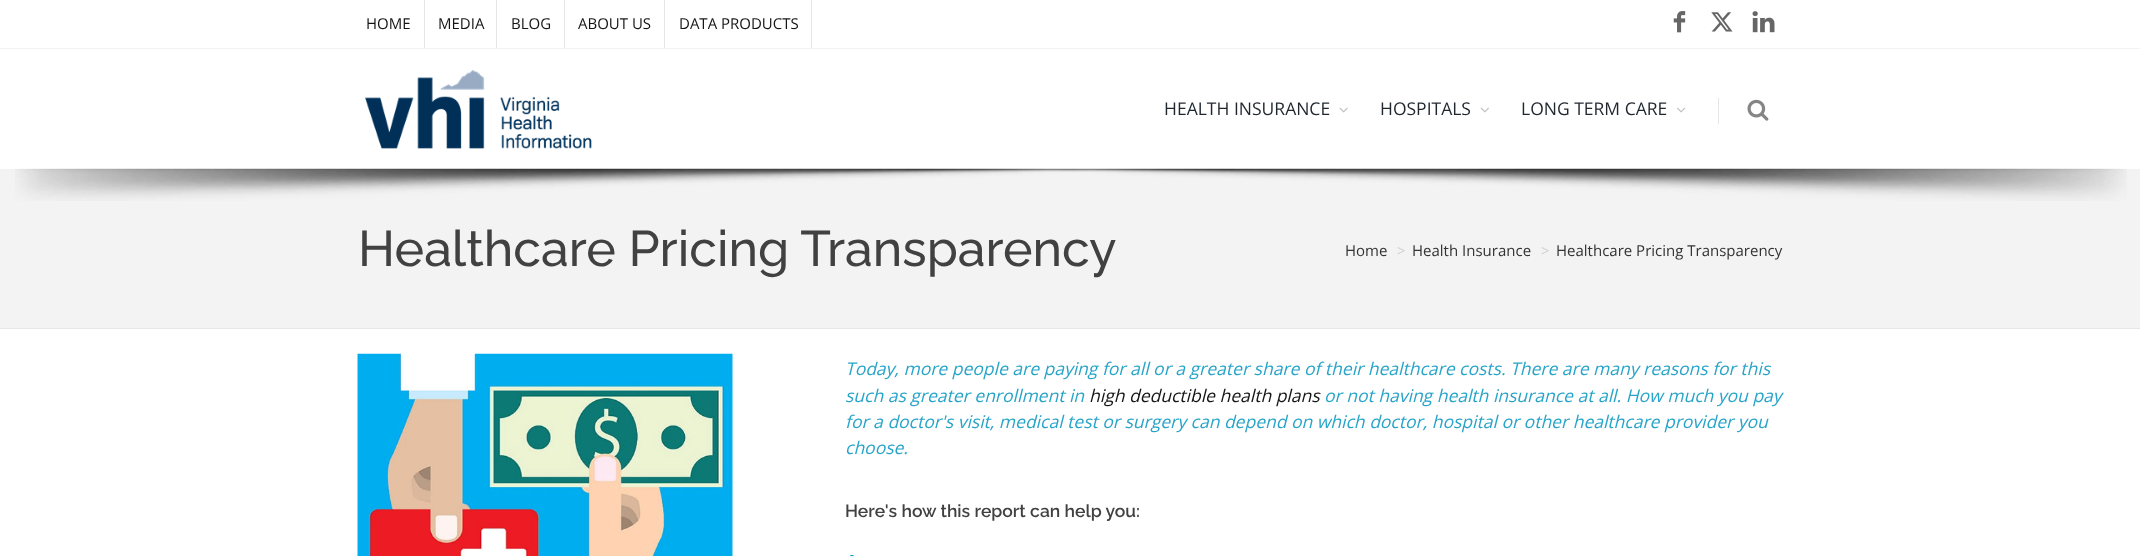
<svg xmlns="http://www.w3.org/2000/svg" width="2140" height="556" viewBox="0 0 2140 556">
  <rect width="100%" height="100%" fill="rgb(255,255,255)"/>
  <rect x="0" y="48" width="2140" height="1" fill="rgb(242,242,242)"/>
  <rect x="424" y="0" width="1" height="48" fill="rgb(230,230,230)"/>
  <text x="366" y="29" font-family="Open Sans" font-size="15" fill="rgb(21,21,21)">HOME</text>
  <rect x="496" y="0" width="1" height="48" fill="rgb(230,230,230)"/>
  <text x="438" y="29" font-family="Open Sans" font-size="15" fill="rgb(21,21,21)">MEDIA</text>
  <rect x="564" y="0" width="1" height="48" fill="rgb(230,230,230)"/>
  <text x="511" y="29" font-family="Open Sans" font-size="15" fill="rgb(21,21,21)">BLOG</text>
  <rect x="664" y="0" width="1" height="48" fill="rgb(230,230,230)"/>
  <text x="578" y="29" font-family="Open Sans" font-size="15" fill="rgb(21,21,21)">ABOUT US</text>
  <rect x="811" y="0" width="1" height="48" fill="rgb(230,230,230)"/>
  <text x="679" y="29" font-family="Open Sans" font-size="15" fill="rgb(21,21,21)">DATA PRODUCTS</text>
  <image x="1673" y="11" width="13" height="22" href="pic1.png"/>
  <image x="1711" y="12" width="22" height="20" href="pic2.png"/>
  <image x="1752" y="11" width="23" height="22" href="pic3.png"/>
  <rect x="0" y="169" width="2140" height="1" fill="rgb(242,242,242)"/>
  <image x="365" y="70" width="227" height="79" href="pic4.png"/>
  <text x="1164" y="115" font-family="Open Sans" font-size="17.5" fill="rgb(31,38,45)">HEALTH INSURANCE</text>
  <image x="1339" y="107" width="9" height="6" href="pic5.png"/>
  <text x="1380" y="115" font-family="Open Sans" font-size="17.5" fill="rgb(31,38,45)">HOSPITALS</text>
  <image x="1480" y="107" width="9" height="6" href="pic6.png"/>
  <text x="1521" y="115" font-family="Open Sans" font-size="17.5" fill="rgb(31,38,45)">LONG TERM CARE</text>
  <image x="1677" y="107" width="9" height="6" href="pic7.png"/>
  <rect x="1718" y="98" width="1" height="26" fill="rgb(230,230,230)"/>
  <image x="1747" y="99" width="22" height="22" href="pic8.png"/>
  <rect x="0" y="170" width="2140" height="158" fill="rgb(243,243,243)"/>
  <image x="15" y="168" width="2112" height="33" href="pic9.png"/>
  <rect x="0" y="328" width="2140" height="1" fill="rgb(231,231,231)"/>
  <text x="358" y="266" font-family="Raleway" font-size="50" font-weight="500" fill="rgb(65,65,65)">Healthcare Pricing Transparency</text>
  <text x="1345" y="256" font-family="Open Sans" font-size="15" fill="rgb(51,51,51)">Home</text>
  <text x="1397" y="256" font-family="Open Sans" font-size="15" fill="rgb(204,204,204)">&gt;</text>
  <text x="1412" y="256" font-family="Open Sans" font-size="15" fill="rgb(51,51,51)">Health Insurance</text>
  <text x="1541" y="256" font-family="Open Sans" font-size="15" fill="rgb(204,204,204)">&gt;</text>
  <text x="1556" y="256" font-family="Open Sans" font-size="15" fill="rgb(51,51,51)">Healthcare Pricing Transparency</text>
  <image x="357" y="353" width="376" height="203" href="pic10.png"/>
  <g font-family="Open Sans" font-size="17.5" font-style="italic" fill="rgb(40,164,201)">
    <text>
      <tspan x="845" y="375">Today, more people are paying for all or a greater share of their healthcare costs. There are many reasons for this</tspan>
      <tspan x="845" y="402">such as greater enrollment in</tspan>
    </text>
  </g>
  <text x="1089" y="402" font-family="Open Sans" font-size="17.5" font-style="italic" fill="rgb(21,21,21)">high deductible health plans</text>
  <g font-family="Open Sans" font-size="17.5" font-style="italic" fill="rgb(40,164,201)">
    <text x="1324" y="402">or not having health insurance at all. How much you pay</text>
    <text>
      <tspan x="845" y="428">for a doctor's visit, medical test or surgery can depend on which doctor, hospital or other healthcare provider you</tspan>
      <tspan x="845" y="454">choose.</tspan>
    </text>
  </g>
  <text x="845" y="517" font-family="Raleway" font-size="17.5" font-weight="600" fill="rgb(65,65,65)">Here's how this report can help you:</text>
  <image x="850" y="555" width="4" height="1" href="pic11.png"/>
</svg>
